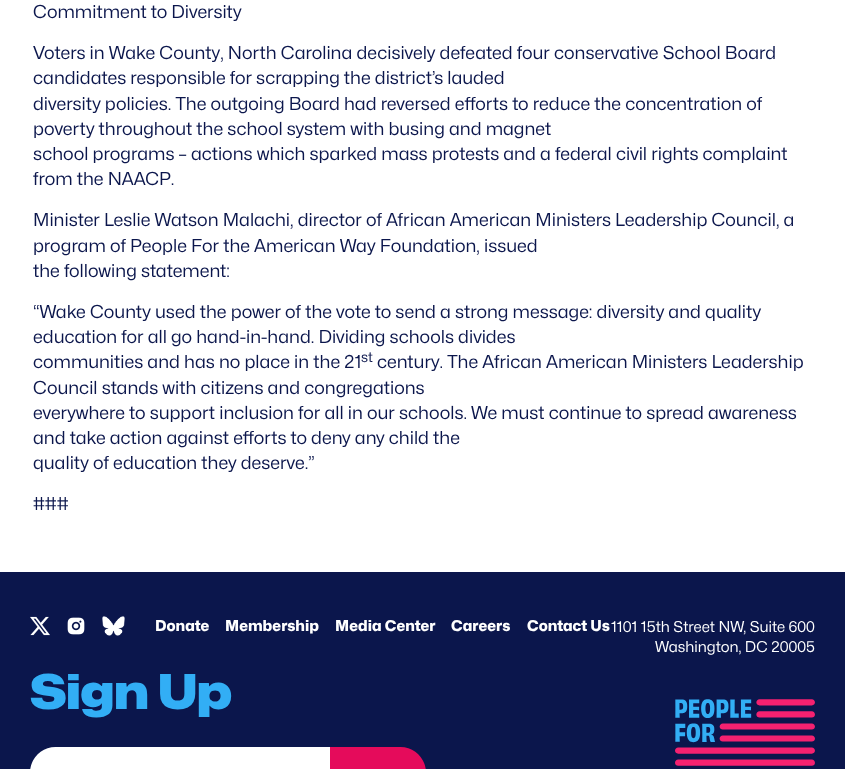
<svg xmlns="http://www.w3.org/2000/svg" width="845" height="769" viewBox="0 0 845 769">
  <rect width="100%" height="100%" fill="rgb(255,255,255)"/>
  <g font-family="Mona Sans" font-size="18" fill="rgb(11,22,76)">
    <text x="33" y="18">Commitment to Diversity</text>
    <text>
      <tspan x="33" y="59">Voters in Wake County, North Carolina decisively defeated four conservative School Board</tspan>
      <tspan x="33" y="84">candidates responsible for scrapping the district’s lauded</tspan>
      <tspan x="33" y="110">diversity policies. The outgoing Board had reversed efforts to reduce the concentration of</tspan>
      <tspan x="33" y="135">poverty throughout the school system with busing and magnet</tspan>
      <tspan x="33" y="160">school programs – actions which sparked mass protests and a federal civil rights complaint</tspan>
      <tspan x="33" y="185">from the NAACP.</tspan>
    </text>
    <text>
      <tspan x="33" y="226">Minister Leslie Watson Malachi, director of African American Ministers Leadership Council, a</tspan>
      <tspan x="33" y="252">program of People For the American Way Foundation, issued</tspan>
      <tspan x="33" y="277">the following statement:</tspan>
    </text>
    <text>
      <tspan x="33" y="318">“Wake County used the power of the vote to send a strong message: diversity and quality</tspan>
      <tspan x="33" y="343">education for all go hand-in-hand. Dividing schools divides</tspan>
      <tspan x="33" y="368">communities and has no place in the 21</tspan>
    </text>
  </g>
  <text x="361" y="362" font-family="Mona Sans" font-size="14" fill="rgb(11,22,76)">st</text>
  <g font-family="Mona Sans" font-size="18" fill="rgb(11,22,76)">
    <text x="377" y="368">century. The African American Ministers Leadership</text>
    <text>
      <tspan x="33" y="394">Council stands with citizens and congregations</tspan>
      <tspan x="33" y="419">everywhere to support inclusion for all in our schools. We must continue to spread awareness</tspan>
      <tspan x="33" y="444">and take action against efforts to deny any child the</tspan>
      <tspan x="33" y="469">quality of education they deserve.”</tspan>
    </text>
    <text x="33" y="510">###</text>
  </g>
  <rect x="0" y="572" width="845" height="197" fill="rgb(11,22,76)"/>
  <image x="30" y="616" width="20" height="20" href="pic1.png"/>
  <image x="67" y="617" width="18" height="18" href="pic2.png"/>
  <image x="102" y="616" width="23" height="20" href="pic3.png"/>
  <g font-family="Mona Sans" font-size="15" font-weight="800" fill="rgb(255,255,255)">
    <text x="155" y="631">Donate</text>
    <text x="225" y="631">Membership</text>
    <text x="335" y="631">Media Center</text>
    <text x="451" y="631">Careers</text>
    <text x="527" y="631">Contact Us</text>
  </g>
  <g font-family="Mona Sans" font-size="15" fill="rgb(255,255,255)">
    <text x="611" y="632">1101 15th Street NW, Suite 600</text>
    <text x="655" y="652">Washington, DC 20005</text>
  </g>
  <image x="675" y="699" width="140" height="67" href="pic4.png"/>
  <text x="30" y="709" font-family="Mona Sans" font-size="48" font-weight="900" letter-spacing="-0.5" fill="rgb(50,174,245)">Sign Up</text>
  <path d="M55.5 747H330V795H55.5C41.5 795 30 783.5 30 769.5V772.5C30 758.5 41.5 747 55.5 747Z" fill="rgb(255,255,255)"/>
  <path d="M330 747H400.5C414.5 747 426 758.5 426 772.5V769.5C426 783.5 414.5 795 400.5 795H330Z" fill="rgb(229,11,91)"/>
</svg>
